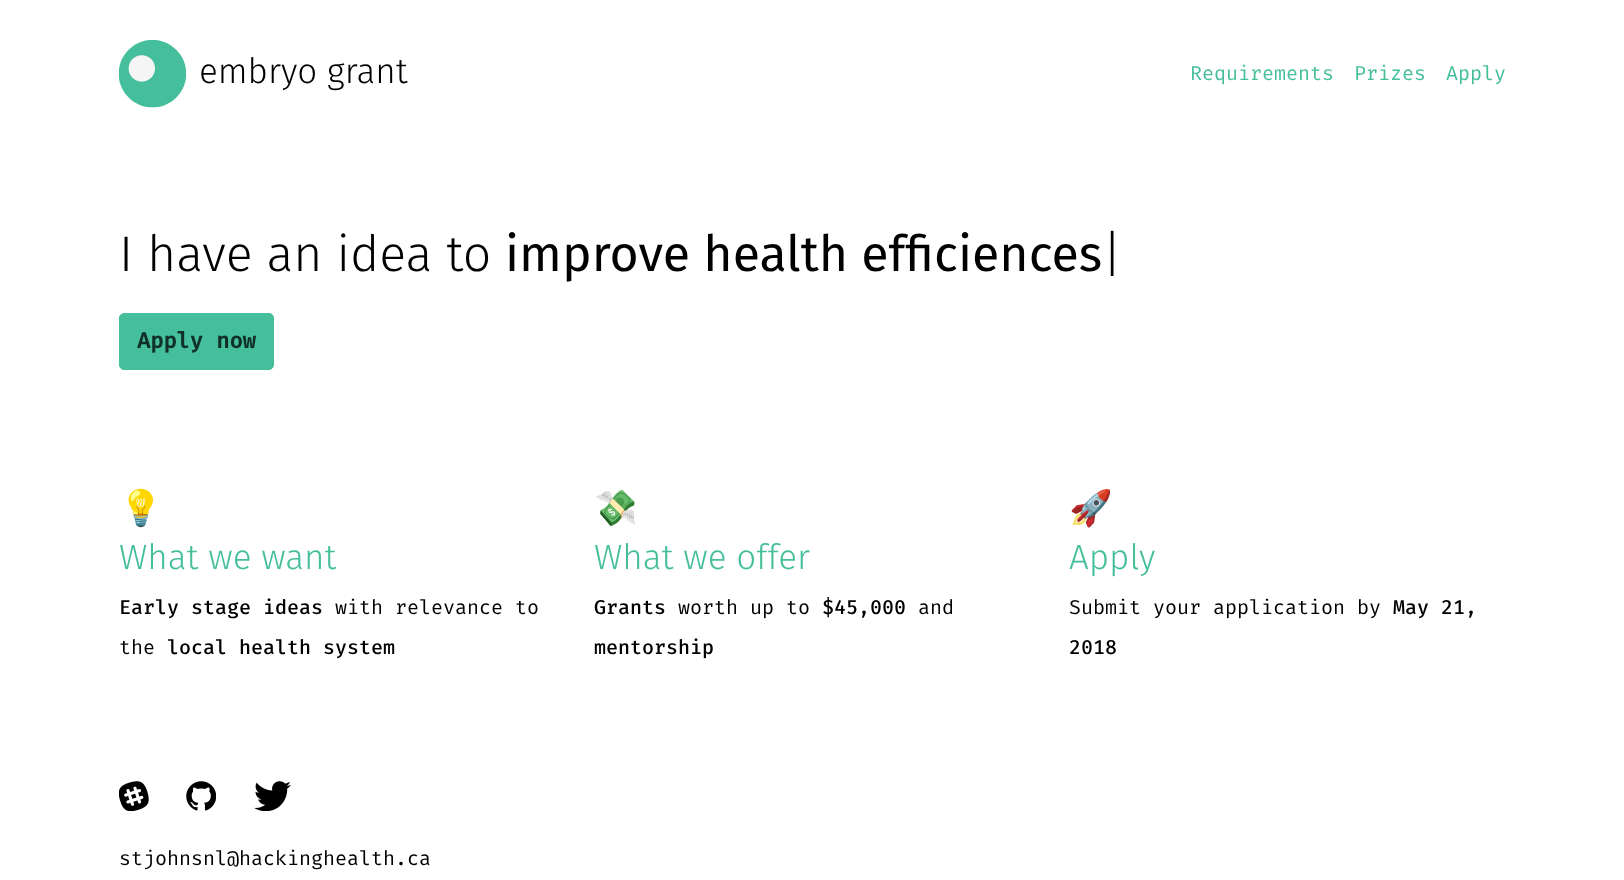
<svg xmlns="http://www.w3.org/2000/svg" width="1624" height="880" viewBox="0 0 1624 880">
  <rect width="100%" height="100%" fill="rgb(255,255,255)"/>
  <image x="119" y="40" width="67" height="68" href="pic1.png"/>
  <text x="199" y="83" font-family="Fira Sans" font-size="35" font-weight="300" fill="rgb(0,0,0)">embryo grant</text>
  <g font-family="Fira Mono" font-size="20" fill="rgb(68,190,155)">
    <text x="1190" y="80">Requirements</text>
    <text x="1354" y="80">Prizes</text>
    <text x="1446" y="80">Apply</text>
  </g>
  <text x="119" y="271" font-family="Fira Sans" font-size="50" font-weight="300" fill="rgb(0,0,0)">I have an idea to</text>
  <text x="505" y="271" font-family="Fira Sans" font-size="50" fill="rgb(0,0,0)">improve health efficiences</text>
  <text x="1102" y="271" font-family="Fira Sans" font-size="50" font-weight="300" fill="rgb(0,0,0)">|</text>
  <rect x="119.5" y="313.5" width="154" height="56" rx="4.5" fill="rgb(68,190,155)" stroke="rgb(68,190,155)"/>
  <text x="137" y="348" font-family="Fira Mono" font-size="22" font-weight="bold" fill="rgb(17,48,39)">Apply now</text>
  <text x="119" y="520" font-family="Noto Color Emoji" font-size="35" fill="rgb(0,0,0)">💡</text>
  <text x="119" y="569" font-family="Fira Sans" font-size="35" font-weight="300" fill="rgb(68,190,155)">What we want</text>
  <text x="119" y="614" font-family="Fira Mono" font-size="20" font-weight="500" fill="rgb(0,0,0)">Early stage ideas</text>
  <g font-family="Fira Mono" font-size="20" fill="rgb(0,0,0)">
    <text x="335" y="614">with relevance to</text>
    <text x="119" y="654">the</text>
  </g>
  <text x="167" y="654" font-family="Fira Mono" font-size="20" font-weight="500" fill="rgb(0,0,0)">local health system</text>
  <text x="594" y="520" font-family="Noto Color Emoji" font-size="35" fill="rgb(0,0,0)">💸</text>
  <text x="594" y="569" font-family="Fira Sans" font-size="35" font-weight="300" fill="rgb(68,190,155)">What we offer</text>
  <text x="594" y="614" font-family="Fira Mono" font-size="20" font-weight="500" fill="rgb(0,0,0)">Grants</text>
  <text x="678" y="614" font-family="Fira Mono" font-size="20" fill="rgb(0,0,0)">worth up to</text>
  <text x="822" y="614" font-family="Fira Mono" font-size="20" font-weight="500" fill="rgb(0,0,0)">$45,000</text>
  <text x="918" y="614" font-family="Fira Mono" font-size="20" fill="rgb(0,0,0)">and</text>
  <text x="594" y="654" font-family="Fira Mono" font-size="20" font-weight="500" fill="rgb(0,0,0)">mentorship</text>
  <text x="1069" y="520" font-family="Noto Color Emoji" font-size="35" fill="rgb(0,0,0)">🚀</text>
  <text x="1069" y="569" font-family="Fira Sans" font-size="35" font-weight="300" fill="rgb(68,190,155)">Apply</text>
  <text x="1069" y="614" font-family="Fira Mono" font-size="20" fill="rgb(0,0,0)">Submit your application by</text>
  <g font-family="Fira Mono" font-size="20" font-weight="500" fill="rgb(0,0,0)">
    <text x="1393" y="614">May 21,</text>
    <text x="1069" y="654">2018</text>
  </g>
  <image x="119" y="781" width="30" height="30" href="pic2.png"/>
  <image x="186" y="781" width="30" height="30" href="pic3.png"/>
  <image x="254" y="781" width="37" height="30" href="pic4.png"/>
  <text x="119" y="865" font-family="Fira Mono" font-size="20" fill="rgb(0,0,0)">stjohnsnl@hackinghealth.ca</text>
</svg>
